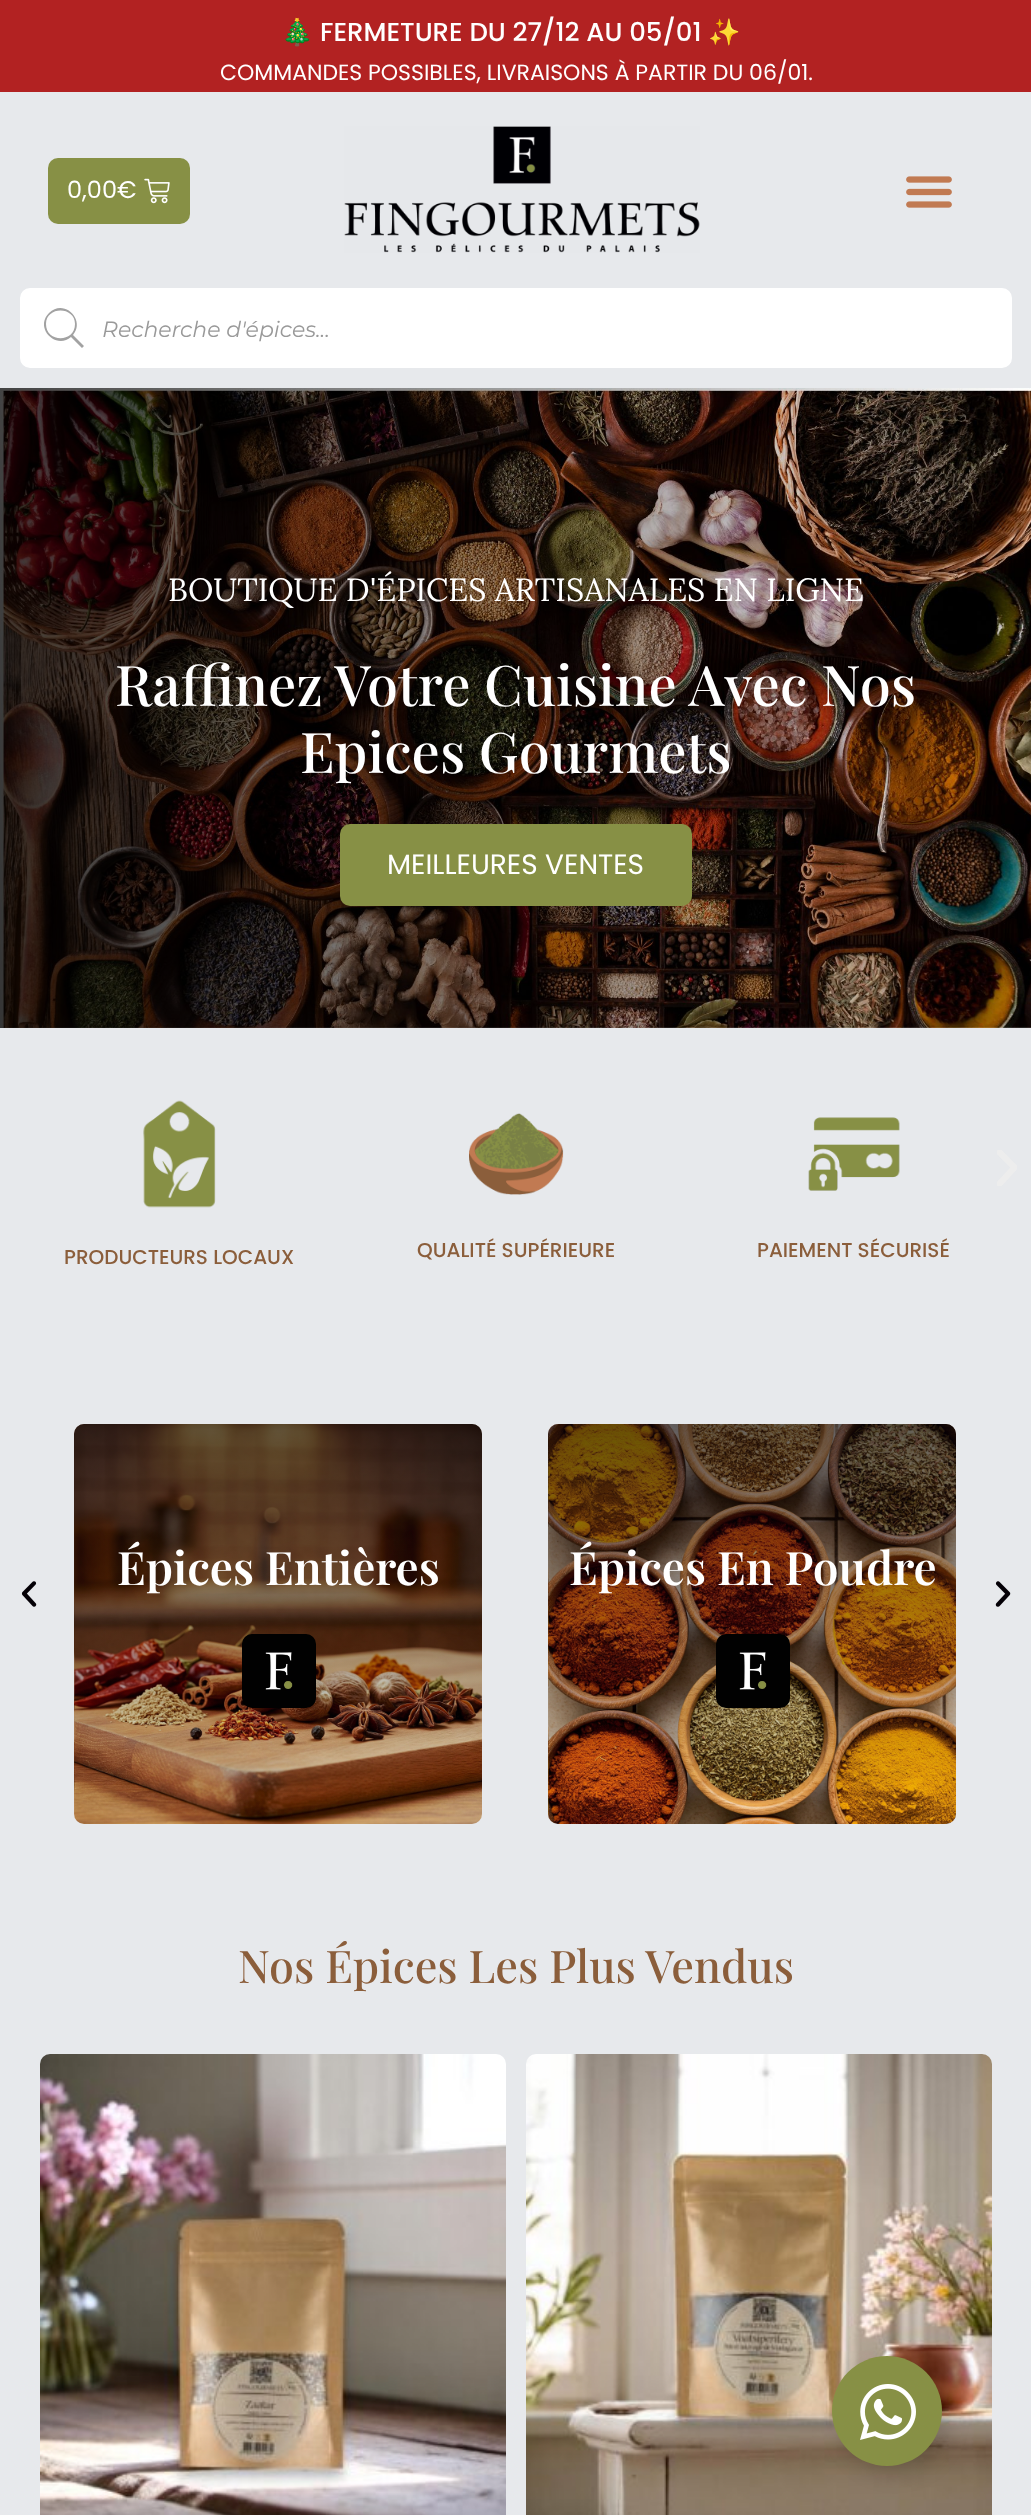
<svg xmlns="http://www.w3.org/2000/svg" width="1031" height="2515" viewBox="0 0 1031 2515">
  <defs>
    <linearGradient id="g1" gradientUnits="userSpaceOnUse" x1="278" y1="1424" x2="278" y2="1824"><stop offset="0" stop-color="rgb(4,0,6)" stop-opacity="0.6"/><stop offset="1" stop-color="rgb(4,0,6)" stop-opacity="0"/></linearGradient>
    <linearGradient id="g2" gradientUnits="userSpaceOnUse" x1="752" y1="1424" x2="752" y2="1824"><stop offset="0" stop-color="rgb(4,0,6)" stop-opacity="0.6"/><stop offset="1" stop-color="rgb(4,0,6)" stop-opacity="0"/></linearGradient>
  </defs>
  <rect width="100%" height="100%" fill="rgb(231,233,236)"/>
  <rect x="0" y="0" width="1031" height="92" fill="rgb(178,34,34)"/>
  <text x="281" y="41" font-family="Noto Color Emoji" font-size="26" fill="rgb(255,255,255)">🎄</text>
  <text x="320" y="41" font-family="Poppins" font-size="26" font-weight="500" fill="rgb(255,255,255)">FERMETURE DU 27/12 AU 05/01</text>
  <text x="708" y="41" font-family="Noto Color Emoji" font-size="26" fill="rgb(255,255,255)">✨</text>
  <text x="220" y="80" font-family="Poppins" font-size="22" fill="rgb(255,255,255)">COMMANDES POSSIBLES, LIVRAISONS À PARTIR DU 06/01.</text>
  <rect x="48" y="158" width="142" height="66" rx="10" fill="rgb(135,144,69)"/>
  <text x="67" y="198" font-family="Poppins" font-size="24" fill="rgb(255,255,255)">0,00€</text>
  <image x="144" y="178" width="26" height="26" href="pic1.png"/>
  <image x="344" y="126" width="356" height="127" href="pic2.png"/>
  <image x="906" y="176" width="46" height="32" href="pic3.png"/>
  <rect x="21" y="289" width="990" height="78" rx="9" fill="rgb(255,255,255)" stroke="rgb(255,255,255)" stroke-width="2"/>
  <path d="M84 346L73 335C86 320 64 298 49 313C34 328 56 350 71 337L82 348ZM46 324C46 306 75 306 75 324C75 343 46 343 46 324Z" fill="rgb(162,162,162)"/>
  <text x="102" y="337" font-family="Montserrat" font-size="22" font-style="italic" fill="rgb(153,153,153)">Recherche d'épices...</text>
  <image x="0" y="388" width="1031" height="640" href="pic4.png"/>
  <text x="168" y="601" font-family="Lora" font-size="32" fill="rgb(255,255,255)">BOUTIQUE D'ÉPICES ARTISANALES EN LIGNE</text>
  <g font-family="Playfair Display" font-size="56" font-weight="500" fill="rgb(255,255,255)">
    <text x="115" y="706">Raffinez Votre Cuisine Avec Nos</text>
    <text x="300" y="773">Epices Gourmets</text>
  </g>
  <rect x="340" y="824" width="352" height="82" rx="10" fill="rgb(135,144,69)"/>
  <text x="387" y="874" font-family="Poppins" font-size="28" fill="rgb(255,255,255)">MEILLEURES VENTES</text>
  <image x="997" y="1150" width="20" height="36" href="pic5.png"/>
  <image x="143" y="1100" width="73" height="108" href="pic6.png"/>
  <text x="64" y="1264" font-family="Poppins" font-size="20" font-weight="500" fill="rgb(139,94,59)">PRODUCTEURS LOCAUX</text>
  <image x="469" y="1113" width="95" height="82" href="pic7.png"/>
  <text x="417" y="1257" font-family="Poppins" font-size="20" font-weight="500" fill="rgb(139,94,59)">QUALITÉ SUPÉRIEURE</text>
  <image x="808" y="1117" width="92" height="74" href="pic8.png"/>
  <text x="757" y="1257" font-family="Poppins" font-size="20" font-weight="500" fill="rgb(139,94,59)">PAIEMENT SÉCURISÉ</text>
  <image x="21" y="1581" width="16" height="26" href="pic9.png"/>
  <image x="74" y="1424" width="408" height="400" href="pic10.png"/>
  <rect x="74" y="1424" width="408" height="400" rx="10" fill="url(#g1)"/>
  <text x="117" y="1585" font-family="Playfair Display" font-size="46" font-weight="600" fill="rgb(255,255,255)">Épices Entières</text>
  <image x="242" y="1634" width="74" height="74" href="pic11.png"/>
  <image x="548" y="1424" width="408" height="400" href="pic12.png"/>
  <rect x="548" y="1424" width="408" height="400" rx="10" fill="url(#g2)"/>
  <text x="569" y="1585" font-family="Playfair Display" font-size="46" font-weight="600" fill="rgb(255,255,255)">Épices En Poudre</text>
  <image x="716" y="1634" width="74" height="74" href="pic13.png"/>
  <image x="995" y="1581" width="16" height="26" href="pic14.png"/>
  <text x="238" y="1983" font-family="Playfair Display" font-size="44.9" font-weight="500" fill="rgb(139,94,59)">Nos Épices Les Plus Vendus</text>
  <image x="40" y="2054" width="466" height="461" href="pic15.png"/>
  <image x="526" y="2054" width="466" height="461" href="pic16.png"/>
  <rect x="840" y="2364" width="110" height="110" rx="55" fill="rgba(0,0,0,0.15)" filter="blur(10px)"/>
  <circle cx="887" cy="2411" r="55" fill="rgb(135,144,69)"/>
  <image x="860" y="2384" width="56" height="56" href="pic17.png"/>
</svg>
